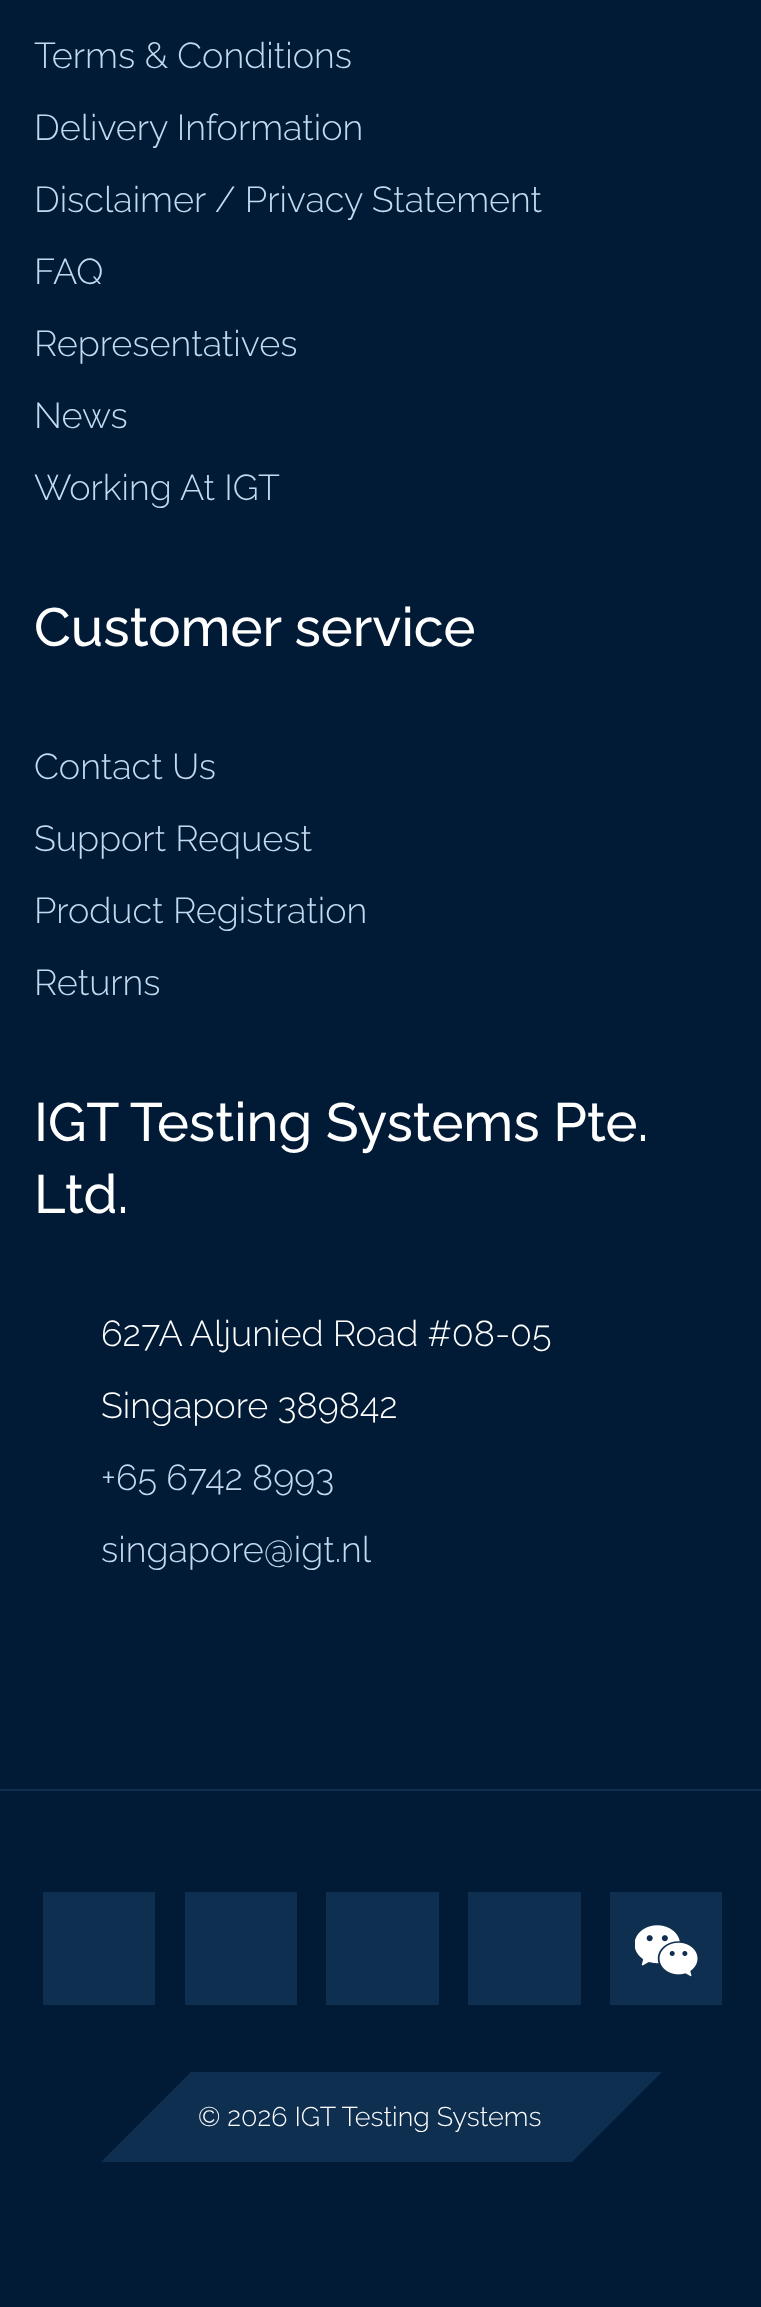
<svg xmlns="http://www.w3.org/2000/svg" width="761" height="2307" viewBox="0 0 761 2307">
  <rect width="100%" height="100%" fill="rgb(1,27,54)"/>
  <g font-family="Raleway" font-size="36" font-weight="300" fill="rgb(196,217,239)">
    <text x="34" y="68">Terms &amp; Conditions</text>
    <text x="34" y="140">Delivery Information</text>
    <text x="34" y="212">Disclaimer / Privacy Statement</text>
    <text x="34" y="284">FAQ</text>
    <text x="34" y="356">Representatives</text>
    <text x="34" y="428">News</text>
    <text x="34" y="500">Working At IGT</text>
  </g>
  <text x="34" y="646" font-family="Raleway" font-size="54" font-weight="500" fill="rgb(255,255,255)">Customer service</text>
  <g font-family="Raleway" font-size="36" font-weight="300" fill="rgb(196,217,239)">
    <text x="34" y="779">Contact Us</text>
    <text x="34" y="851">Support Request</text>
    <text x="34" y="923">Product Registration</text>
    <text x="34" y="995">Returns</text>
  </g>
  <g font-family="Raleway" font-size="54" font-weight="500" fill="rgb(255,255,255)">
    <text>
      <tspan x="34" y="1141">IGT Testing Systems Pte.</tspan>
      <tspan x="34" y="1213">Ltd.</tspan>
    </text>
  </g>
  <g font-family="Raleway" font-size="36" font-weight="300" fill="rgb(255,255,255)">
    <text x="101" y="1346">627A Aljunied Road #08-05</text>
    <text x="101" y="1418">Singapore 389842</text>
  </g>
  <g font-family="Raleway" font-size="36" font-weight="300" fill="rgb(196,217,239)">
    <text x="101" y="1490">+65 6742 8993</text>
    <text x="101" y="1562">singapore@igt.nl</text>
  </g>
  <rect x="0" y="1789" width="761" height="2" fill="rgb(14,47,80)"/>
  <rect x="43" y="1892" width="112" height="113" fill="rgb(14,47,80)"/>
  <rect x="185" y="1892" width="112" height="113" fill="rgb(14,47,80)"/>
  <rect x="326" y="1892" width="113" height="113" fill="rgb(14,47,80)"/>
  <rect x="468" y="1892" width="113" height="113" fill="rgb(14,47,80)"/>
  <rect x="610" y="1892" width="112" height="113" fill="rgb(14,47,80)"/>
  <image x="635" y="1925" width="63" height="52" href="pic1.png"/>
  <rect x="191" y="2072" width="381" height="90" fill="rgb(14,47,80)"/>
  <path d="M191 2162H101L191 2072Z" fill="rgb(14,47,80)"/>
  <text x="198" y="2126" font-family="Raleway" font-size="27" font-weight="300" fill="rgb(255,255,255)">© 2026 IGT Testing Systems</text>
  <path d="M572 2072H662L572 2162Z" fill="rgb(14,47,80)"/>
</svg>
